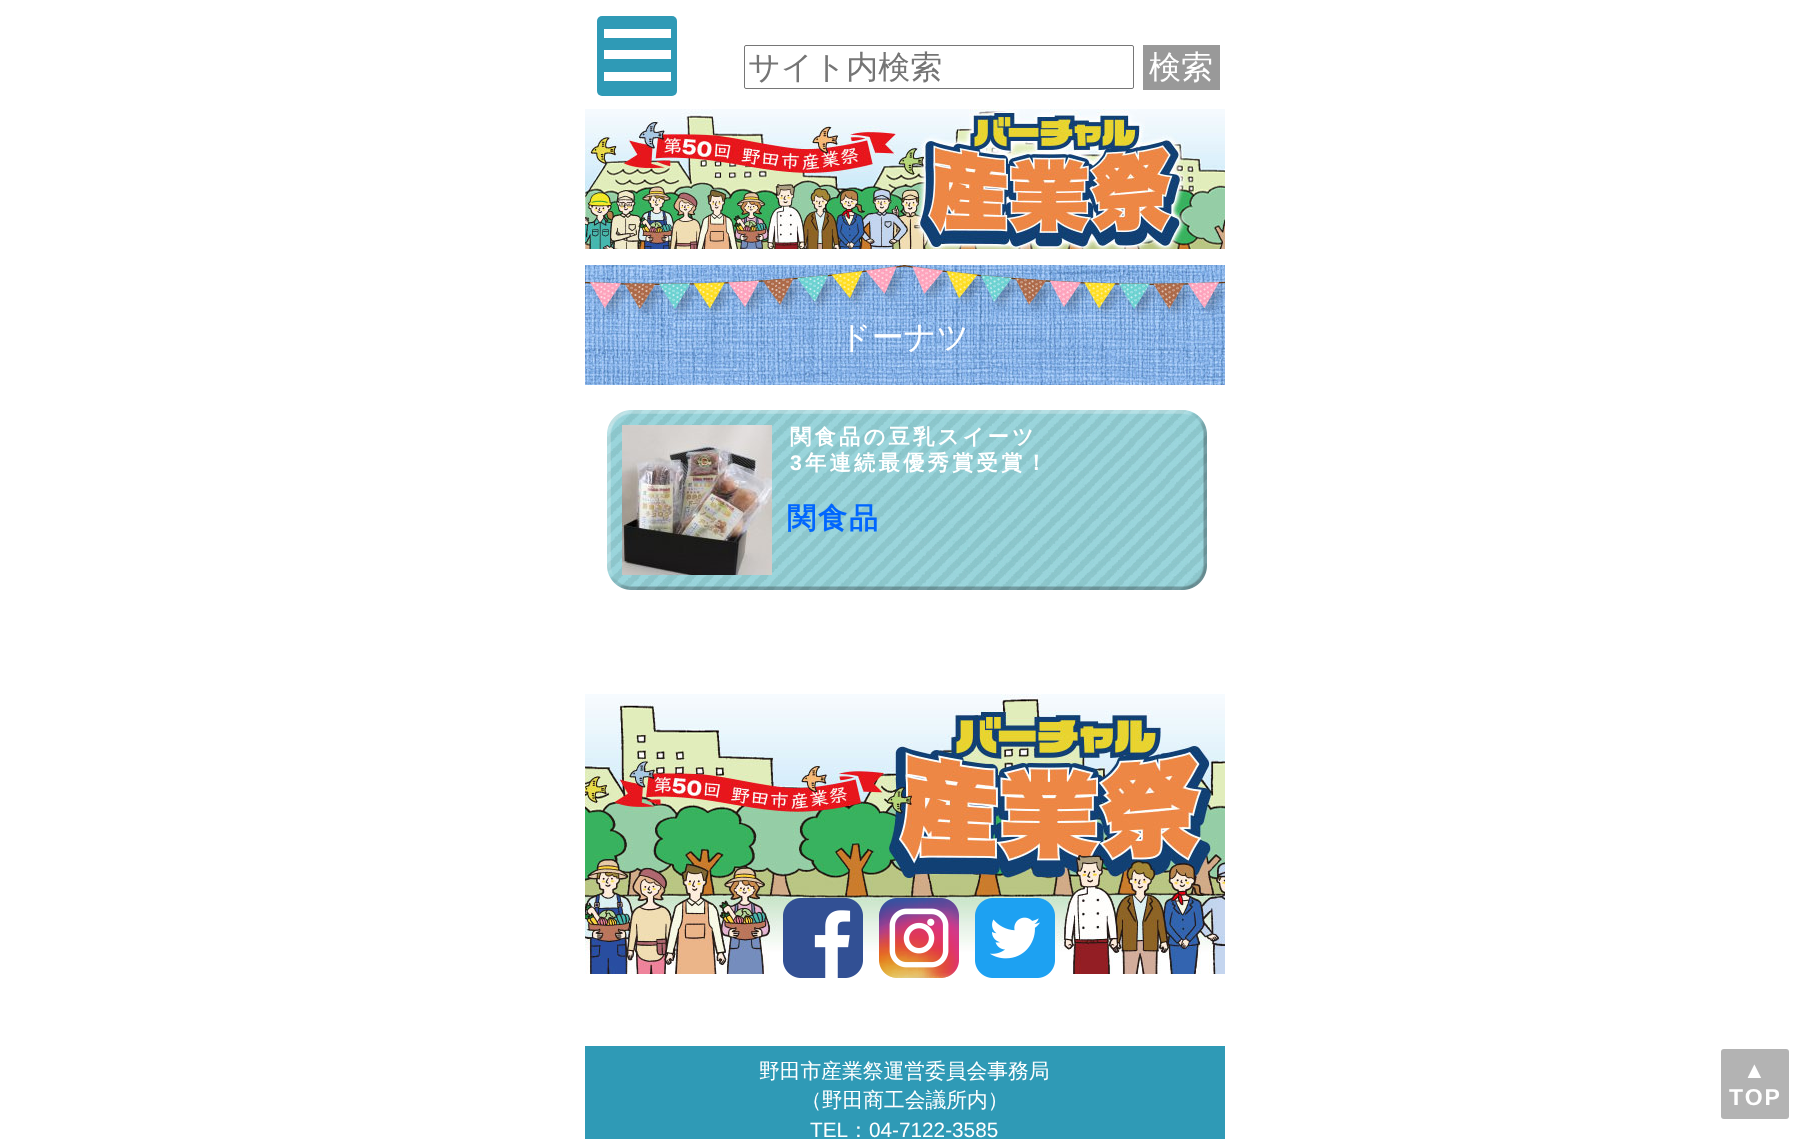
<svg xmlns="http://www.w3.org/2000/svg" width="1809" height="1139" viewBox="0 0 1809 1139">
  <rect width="100%" height="100%" fill="rgb(255,255,255)"/>
  <rect x="597" y="16" width="80" height="80" rx="5" fill="rgb(47,154,182)"/>
  <rect x="604" y="50" width="67" height="9" fill="rgb(255,255,255)"/>
  <rect x="604" y="29" width="67" height="9" fill="rgb(255,255,255)"/>
  <rect x="604" y="72" width="67" height="9" fill="rgb(255,255,255)"/>
  <rect x="744.5" y="45.5" width="389" height="43" rx="1.5" fill="none" stroke="rgb(118,118,118)"/>
  <text x="748" y="78" font-family="WenQuanYi Zen Hei" font-size="32" font-weight="500" fill="rgb(117,117,117)">サイト内検索</text>
  <rect x="1143" y="45" width="77" height="45" fill="rgb(153,153,153)"/>
  <text x="1149" y="78" font-family="WenQuanYi Zen Hei" font-size="32" font-weight="500" fill="rgb(255,255,255)">検索</text>
  <image x="585" y="109" width="640" height="140" href="pic1.png"/>
  <image x="585" y="265" width="640" height="120" href="pic2.png"/>
  <text x="839" y="348" font-family="WenQuanYi Zen Hei" font-size="32" font-weight="500" fill="rgb(255,255,255)">ドーナツ</text>
  <image x="607" y="410" width="600" height="180" href="pic3.png"/>
  <image x="622" y="425" width="150" height="150" href="pic4.png"/>
  <text x="790" y="444" font-family="WenQuanYi Zen Hei" font-size="21.25" font-weight="bold" letter-spacing="3.25" fill="rgb(255,255,255)">関食品の豆乳スイーツ</text>
  <text x="790" y="470" font-family="Liberation Sans" font-size="21.25" font-weight="bold" letter-spacing="3.25" fill="rgb(255,255,255)">3</text>
  <text x="805" y="470" font-family="WenQuanYi Zen Hei" font-size="21.25" font-weight="bold" letter-spacing="3.25" fill="rgb(255,255,255)">年連続最優秀賞受賞！</text>
  <text x="787" y="528" font-family="WenQuanYi Zen Hei" font-size="29" font-weight="bold" letter-spacing="2" fill="rgb(0,102,255)">関食品</text>
  <image x="585" y="694" width="640" height="280" href="pic5.png"/>
  <image x="783" y="898" width="80" height="80" href="pic6.png"/>
  <image x="879" y="898" width="80" height="80" href="pic7.png"/>
  <image x="975" y="898" width="80" height="80" href="pic8.png"/>
  <rect x="585" y="1046" width="640" height="93" fill="rgb(47,154,182)"/>
  <g font-family="WenQuanYi Zen Hei" font-size="20.75" font-weight="500" fill="rgb(255,255,255)">
    <text x="759" y="1078">野田市産業祭運営委員会事務局</text>
    <text x="801" y="1107">（野田商工会議所内）</text>
  </g>
  <text x="810" y="1137" font-family="Liberation Sans" font-size="20.75" fill="rgb(255,255,255)">TEL</text>
  <text x="848" y="1137" font-family="WenQuanYi Zen Hei" font-size="20.75" font-weight="500" fill="rgb(255,255,255)">：</text>
  <text x="869" y="1137" font-family="Liberation Sans" font-size="20.75" fill="rgb(255,255,255)">04-7122-3585</text>
  <rect x="1721" y="1049" width="68" height="70" rx="3" fill="rgb(179,179,179)"/>
  <g font-family="Liberation Sans" font-size="23" font-weight="bold" letter-spacing="2" fill="rgb(255,255,255)">
    <text x="1743" y="1078">▲</text>
    <text x="1729" y="1105">TOP</text>
  </g>
</svg>
